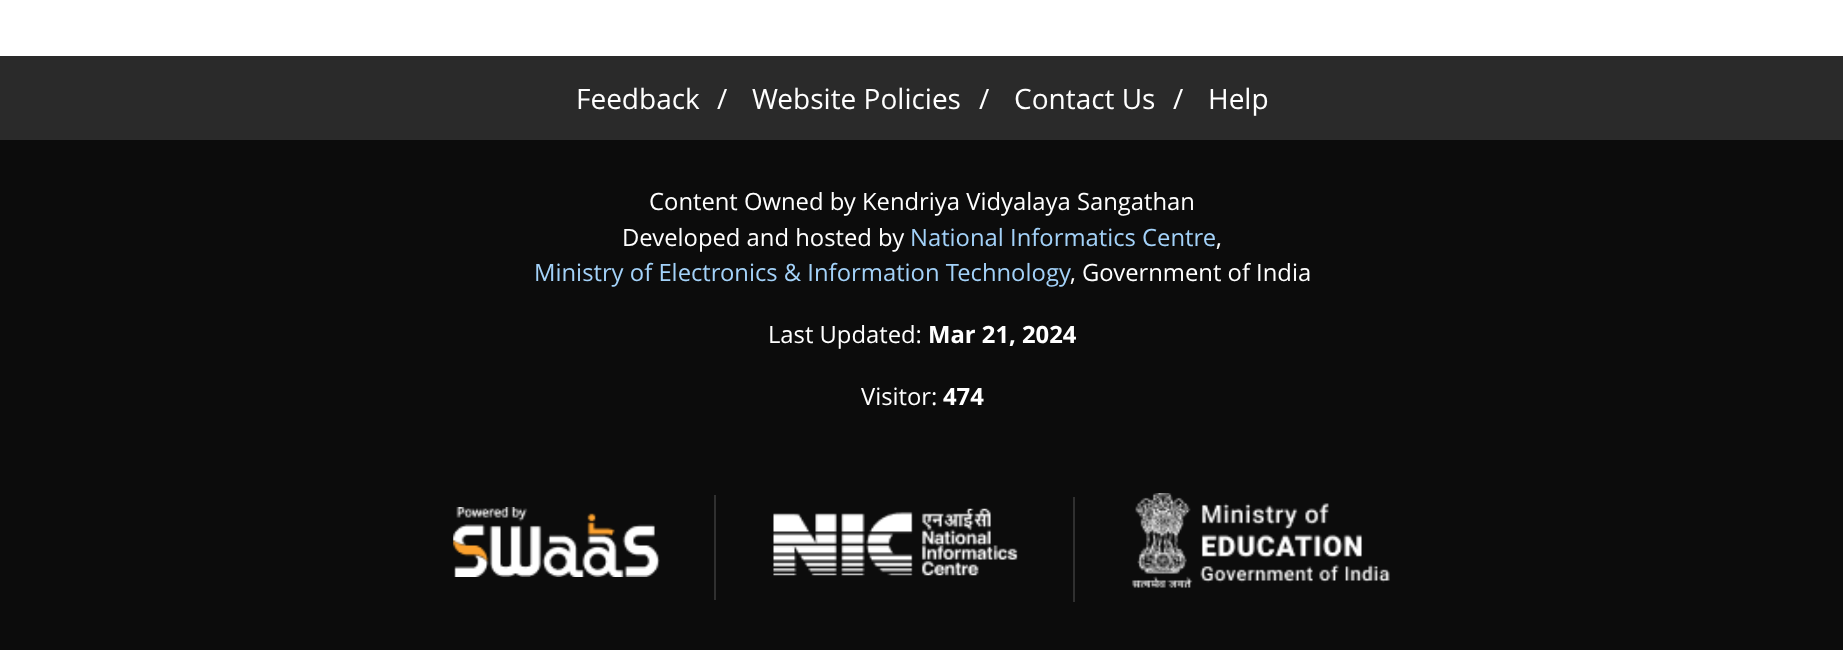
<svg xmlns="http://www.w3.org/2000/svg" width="1843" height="650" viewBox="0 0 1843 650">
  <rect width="100%" height="100%" fill="rgb(255,255,255)"/>
  <rect x="0" y="56" width="1843" height="84" fill="rgb(42,42,42)"/>
  <g font-family="Open Sans" font-size="28" fill="rgb(255,255,255)">
    <text x="576" y="109">Feedback</text>
    <text x="717" y="109">/</text>
    <text x="752" y="109">Website Policies</text>
    <text x="979" y="109">/</text>
    <text x="1014" y="109">Contact Us</text>
    <text x="1173" y="109">/</text>
    <text x="1208" y="109">Help</text>
  </g>
  <rect x="0" y="140" width="1843" height="510" fill="rgb(12,12,12)"/>
  <g font-family="Open Sans" font-size="23.8" fill="rgb(255,255,255)">
    <text x="649" y="210">Content Owned by Kendriya Vidyalaya Sangathan</text>
    <text x="622" y="246">Developed and hosted by</text>
  </g>
  <text x="910" y="246" font-family="Open Sans" font-size="23.8" fill="rgb(163,210,249)">National Informatics Centre</text>
  <text x="1216" y="246" font-family="Open Sans" font-size="23.8" fill="rgb(255,255,255)">,</text>
  <text x="534" y="281" font-family="Open Sans" font-size="23.8" fill="rgb(163,210,249)">Ministry of Electronics &amp; Information Technology</text>
  <g font-family="Open Sans" font-size="23.8" fill="rgb(255,255,255)">
    <text x="1070" y="281">, Government of India</text>
    <text x="768" y="343">Last Updated:</text>
  </g>
  <text x="928" y="343" font-family="Open Sans" font-size="23.8" font-weight="bold" fill="rgb(255,255,255)">Mar 21, 2024</text>
  <text x="861" y="405" font-family="Open Sans" font-size="23.8" fill="rgb(255,255,255)">Visitor:</text>
  <text x="943" y="405" font-family="Open Sans" font-size="23.8" font-weight="bold" fill="rgb(255,255,255)">474</text>
  <image x="453" y="507" width="207" height="70" href="pic1.png"/>
  <rect x="714" y="495" width="2" height="105" fill="rgb(48,48,48)"/>
  <image x="773" y="508" width="245" height="68" href="pic2.png"/>
  <rect x="1073" y="497" width="2" height="105" fill="rgb(48,48,48)"/>
  <image x="1131" y="493" width="259" height="95" href="pic3.png"/>
</svg>
